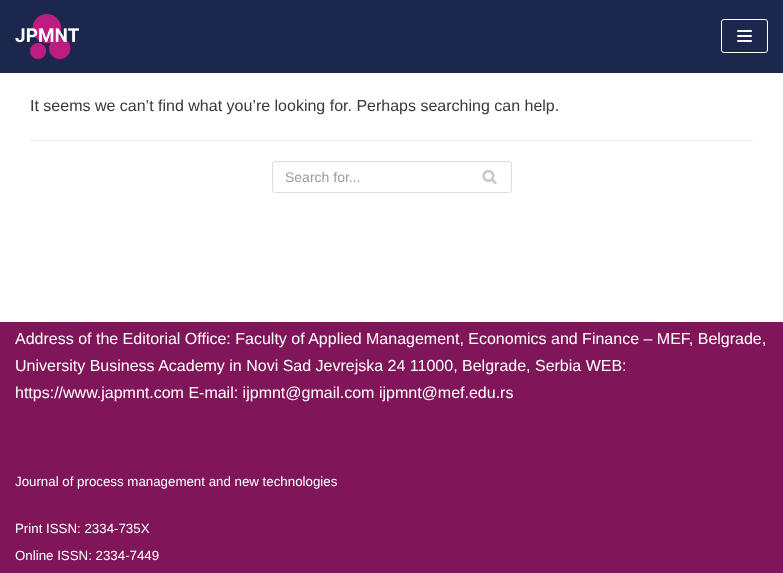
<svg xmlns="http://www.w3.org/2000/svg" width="783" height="573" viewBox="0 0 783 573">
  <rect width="100%" height="100%" fill="rgb(255,255,255)"/>
  <rect x="0" y="0" width="783" height="73" fill="rgb(27,39,77)"/>
  <image x="15" y="14" width="64" height="45" href="pic1.png"/>
  <rect x="721.5" y="19.5" width="46" height="33" rx="2.5" fill="none" stroke="rgb(255,255,255)"/>
  <rect x="737" y="30" width="15" height="2" rx="1" fill="rgb(255,255,255)"/>
  <rect x="737" y="35" width="15" height="2" rx="1" fill="rgb(255,255,255)"/>
  <rect x="737" y="40" width="15" height="2" rx="1" fill="rgb(255,255,255)"/>
  <text x="30" y="111" font-family="Liberation Sans" font-size="16" fill="rgb(57,57,57)">It seems we can’t find what you’re looking for. Perhaps searching can help.</text>
  <rect x="30" y="140" width="723" height="1" fill="rgb(237,237,237)"/>
  <rect x="272.5" y="161.5" width="239" height="31" rx="2.5" fill="none" stroke="rgb(221,221,221)"/>
  <image x="482" y="170" width="15" height="14" href="pic2.png"/>
  <text x="285" y="182" font-family="Liberation Sans" font-size="14" fill="rgb(156,156,156)">Search for...</text>
  <image x="482" y="170" width="15" height="14" href="pic3.png"/>
  <rect x="0" y="322" width="783" height="251" fill="rgb(128,22,89)"/>
  <g font-family="Liberation Sans" font-size="16" fill="rgb(255,255,255)">
    <text>
      <tspan x="15" y="344">Address of the Editorial Office: Faculty of Applied Management, Economics and Finance – MEF, Belgrade,</tspan>
      <tspan x="15" y="371">University Business Academy in Novi Sad Jevrejska 24 11000, Belgrade, Serbia WEB:</tspan>
      <tspan x="15" y="398">https://www.japmnt.com E-mail: ijpmnt@gmail.com ijpmnt@mef.edu.rs</tspan>
    </text>
  </g>
  <g font-family="Liberation Sans" font-size="13.3" fill="rgb(255,255,255)">
    <text x="15" y="486">Journal of process management and new technologies</text>
    <text x="15" y="533">Print ISSN: 2334-735X</text>
    <text x="15" y="560">Online ISSN: 2334-7449</text>
  </g>
</svg>
